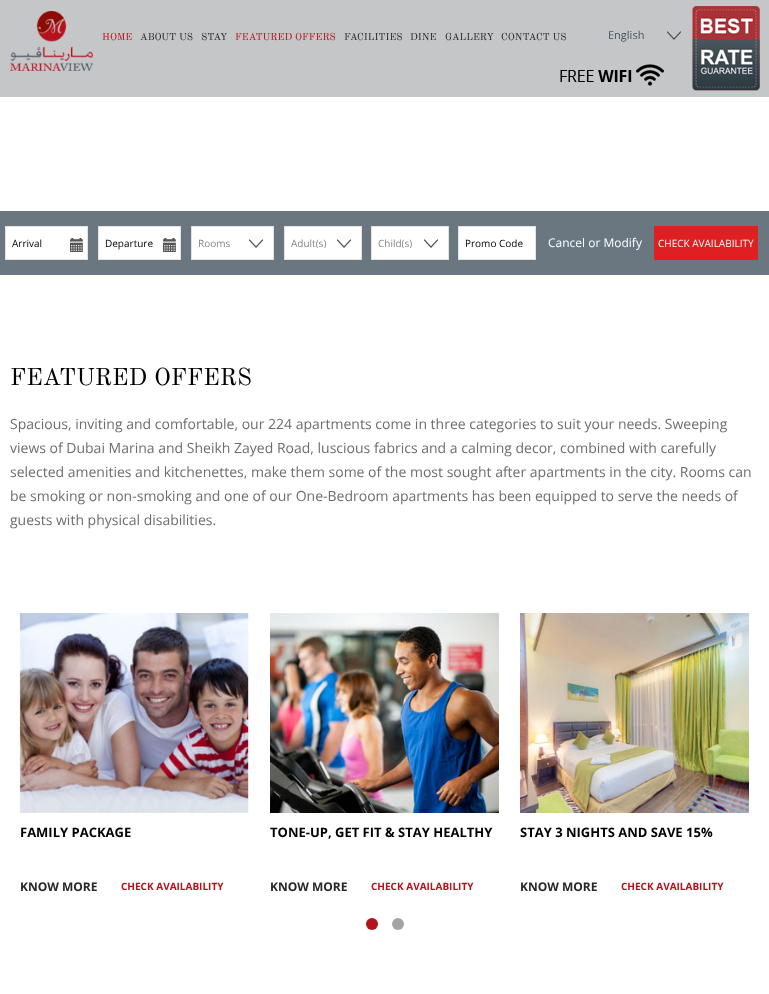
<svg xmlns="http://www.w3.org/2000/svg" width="769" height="994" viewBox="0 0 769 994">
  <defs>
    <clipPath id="clip1"><rect x="291" y="238" width="64" height="10"/></clipPath>
    <clipPath id="clip2"><rect x="378" y="238" width="64" height="10"/></clipPath>
  </defs>
  <rect width="100%" height="100%" fill="rgb(255,255,255)"/>
  <rect x="0" y="0" width="769" height="97" fill="rgb(197,198,200)"/>
  <image x="10" y="11" width="83" height="60" href="pic1.png"/>
  <text x="102" y="40" font-family="Old Standard TT" font-size="10" fill="rgb(181,18,27)">HOME</text>
  <g font-family="Old Standard TT" font-size="10" fill="rgb(39,39,39)">
    <text x="140" y="40">ABOUT US</text>
    <text x="201" y="40">STAY</text>
  </g>
  <text x="235" y="40" font-family="Old Standard TT" font-size="10" fill="rgb(181,18,27)">FEATURED OFFERS</text>
  <g font-family="Old Standard TT" font-size="10" fill="rgb(39,39,39)">
    <text x="344" y="40">FACILITIES</text>
    <text x="410" y="40">DINE</text>
    <text x="445" y="40">GALLERY</text>
    <text x="501" y="40">CONTACT US</text>
  </g>
  <image x="667" y="31" width="14" height="9" href="pic2.png"/>
  <text x="608" y="39" font-family="Open Sans" font-size="11" fill="rgb(69,85,96)">English</text>
  <image x="692" y="6" width="68" height="85" href="pic3.png"/>
  <image x="560" y="64" width="104" height="22" href="pic4.png"/>
  <rect x="0" y="211" width="769" height="64" fill="rgb(106,119,128)"/>
  <rect x="5.5" y="226.5" width="82" height="33" fill="rgb(255,255,255)" stroke="rgb(227,227,227)"/>
  <text x="12" y="247" font-family="Open Sans" font-size="10" fill="rgb(0,0,0)">Arrival</text>
  <image x="70" y="238" width="13" height="14" href="pic5.png"/>
  <rect x="98.5" y="226.5" width="82" height="33" fill="rgb(255,255,255)" stroke="rgb(227,227,227)"/>
  <text x="105" y="247" font-family="Open Sans" font-size="10" fill="rgb(0,0,0)">Departure</text>
  <image x="163" y="238" width="13" height="14" href="pic5.png"/>
  <rect x="192" y="227" width="81" height="32" fill="rgb(255,255,255)"/>
  <image x="249" y="239" width="14" height="9" href="pic6.png"/>
  <rect x="191.5" y="226.5" width="82" height="33" fill="none" stroke="rgb(227,227,227)"/>
  <text x="198" y="247" font-family="Open Sans" font-size="10" fill="rgb(133,133,133)">Rooms</text>
  <rect x="285" y="227" width="76" height="32" fill="rgb(255,255,255)"/>
  <image x="337" y="239" width="14" height="9" href="pic6.png"/>
  <rect x="284.5" y="226.5" width="77" height="33" fill="none" stroke="rgb(227,227,227)"/>
  <g clip-path="url(#clip1)">
    <text x="291" y="247" font-family="Open Sans" font-size="10" fill="rgb(133,133,133)">Adult(s)</text>
  </g>
  <rect x="372" y="227" width="76" height="32" fill="rgb(255,255,255)"/>
  <image x="424" y="239" width="14" height="9" href="pic6.png"/>
  <rect x="371.5" y="226.5" width="77" height="33" fill="none" stroke="rgb(227,227,227)"/>
  <g clip-path="url(#clip2)">
    <text x="378" y="247" font-family="Open Sans" font-size="10" fill="rgb(133,133,133)">Child(s)</text>
  </g>
  <rect x="458.5" y="226.5" width="77" height="33" fill="rgb(255,255,255)" stroke="rgb(227,227,227)"/>
  <text x="465" y="247" font-family="Open Sans" font-size="10" fill="rgb(0,0,0)">Promo Code</text>
  <text x="548" y="247" font-family="Open Sans" font-size="12" fill="rgb(255,255,255)">Cancel or Modify</text>
  <rect x="654" y="226" width="104" height="34" fill="rgb(224,32,32)"/>
  <text x="658" y="247" font-family="Open Sans" font-size="10" fill="rgb(255,255,255)">CHECK AVAILABILITY</text>
  <text x="10" y="385" font-family="Old Standard TT" font-size="24" fill="rgb(0,0,0)">FEATURED OFFERS</text>
  <g font-family="Open Sans" font-size="14" fill="rgb(109,109,109)">
    <text>
      <tspan x="10" y="429">Spacious, inviting and comfortable, our 224 apartments come in three categories to suit your needs. Sweeping</tspan>
      <tspan x="10" y="453">views of Dubai Marina and Sheikh Zayed Road, luscious fabrics and a calming decor, combined with carefully</tspan>
      <tspan x="10" y="477">selected amenities and kitchenettes, make them some of the most sought after apartments in the city. Rooms can</tspan>
      <tspan x="10" y="501">be smoking or non-smoking and one of our One-Bedroom apartments has been equipped to serve the needs of</tspan>
      <tspan x="10" y="525">guests with physical disabilities.</tspan>
    </text>
  </g>
  <image x="19" y="613" width="230" height="200" href="pic7.png"/>
  <text x="20" y="837" font-family="Open Sans" font-size="13" font-weight="bold" fill="rgb(0,0,0)">FAMILY PACKAGE</text>
  <text x="20" y="891" font-family="Open Sans" font-size="12" font-weight="bold" fill="rgb(39,39,39)">KNOW MORE</text>
  <text x="121" y="890" font-family="Open Sans" font-size="10" font-weight="bold" fill="rgb(181,18,27)">CHECK AVAILABILITY</text>
  <image x="270" y="613" width="229" height="200" href="pic8.png"/>
  <text x="270" y="837" font-family="Open Sans" font-size="13" font-weight="bold" fill="rgb(0,0,0)">TONE-UP, GET FIT &amp; STAY HEALTHY</text>
  <text x="270" y="891" font-family="Open Sans" font-size="12" font-weight="bold" fill="rgb(39,39,39)">KNOW MORE</text>
  <text x="371" y="890" font-family="Open Sans" font-size="10" font-weight="bold" fill="rgb(181,18,27)">CHECK AVAILABILITY</text>
  <image x="520" y="613" width="229" height="200" href="pic9.png"/>
  <text x="520" y="837" font-family="Open Sans" font-size="13" font-weight="bold" fill="rgb(0,0,0)">STAY 3 NIGHTS AND SAVE 15%</text>
  <text x="520" y="891" font-family="Open Sans" font-size="12" font-weight="bold" fill="rgb(39,39,39)">KNOW MORE</text>
  <text x="621" y="890" font-family="Open Sans" font-size="10" font-weight="bold" fill="rgb(181,18,27)">CHECK AVAILABILITY</text>
  <circle cx="372" cy="924" r="6" fill="rgb(181,18,27)"/>
  <circle cx="398" cy="924" r="6" fill="rgb(165,165,165)"/>
</svg>
